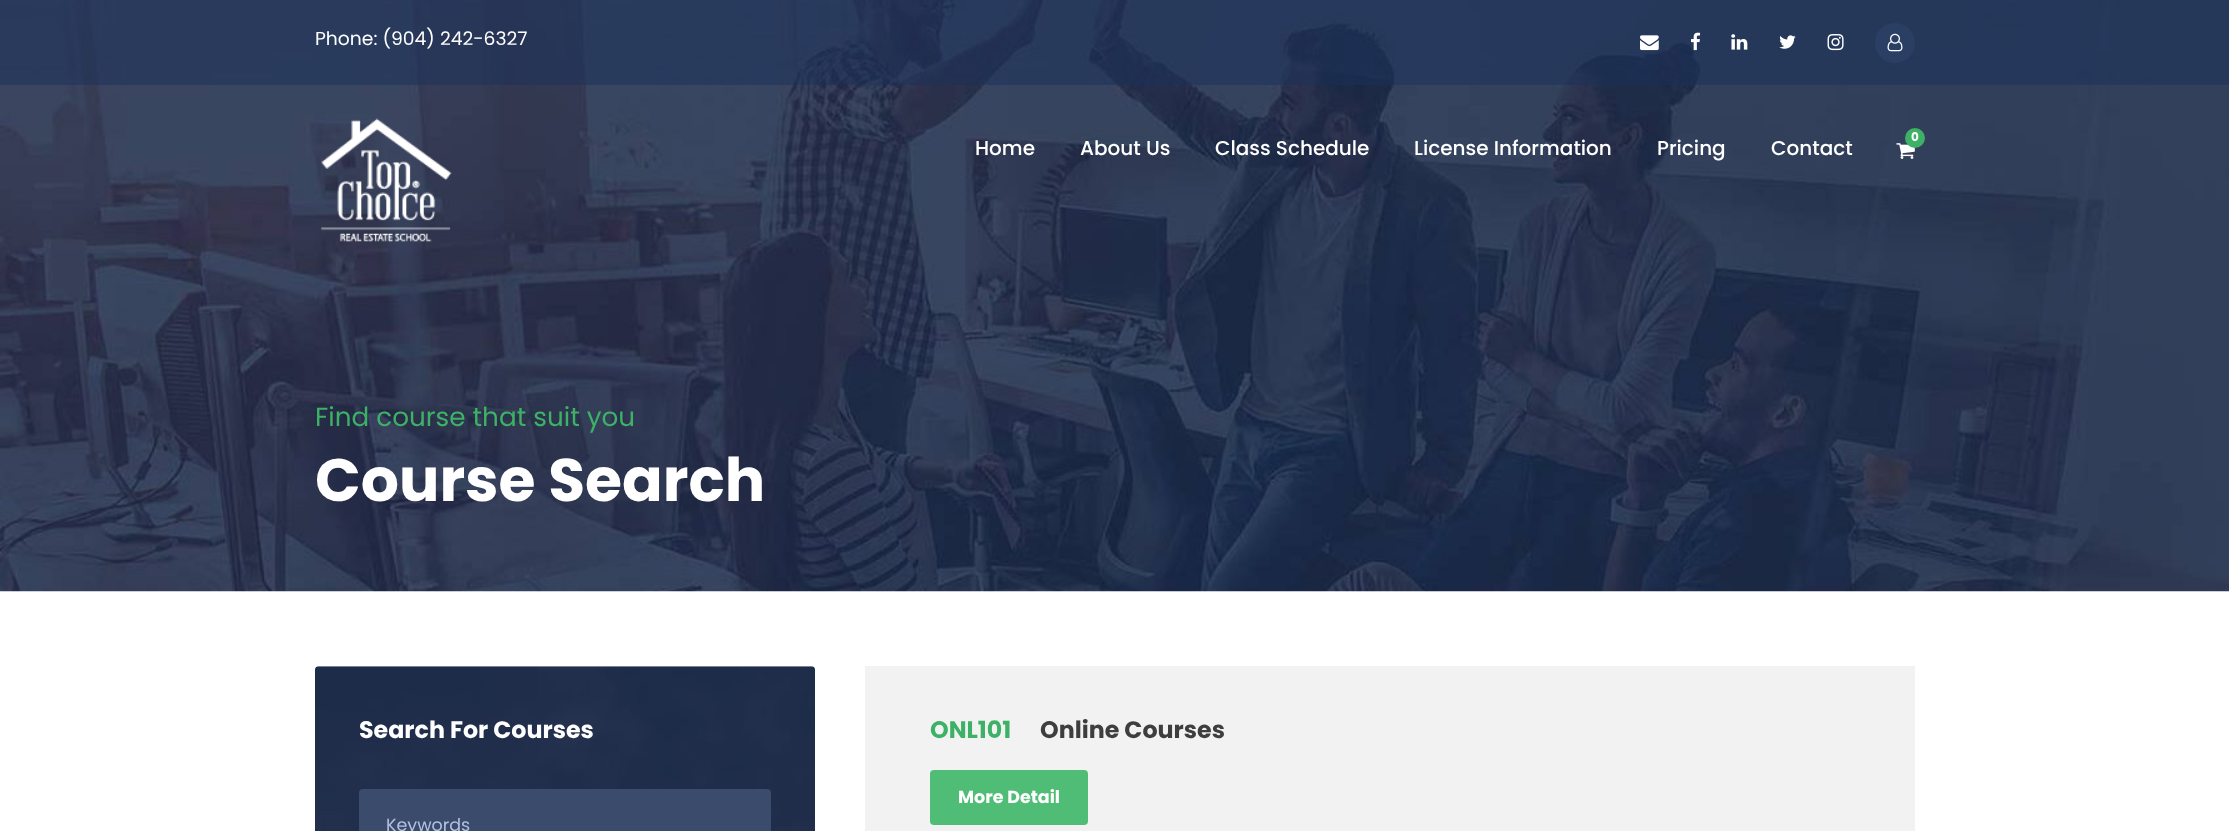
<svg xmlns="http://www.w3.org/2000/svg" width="2229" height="831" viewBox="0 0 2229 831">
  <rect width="100%" height="100%" fill="rgb(255,255,255)"/>
  <image x="0" y="0" width="2229" height="592" href="pic9.png"/>
  <rect x="0" y="0" width="2229" height="85" fill="rgba(25,47,89,0.5)"/>
  <text x="315" y="45" font-family="Poppins" font-size="18.75" fill="rgb(255,255,255)">Phone: (904) 242-6327</text>
  <image x="1640" y="35" width="19" height="16" href="pic1.png"/>
  <image x="1691" y="32" width="10" height="19" href="pic2.png"/>
  <image x="1731" y="34" width="17" height="16" href="pic3.png"/>
  <image x="1779" y="35" width="17" height="14" href="pic4.png"/>
  <image x="1827" y="34" width="17" height="17" href="pic5.png"/>
  <circle cx="1895" cy="43" r="20" fill="rgb(43,63,101)"/>
  <image x="1887" y="33" width="16" height="19" href="pic6.png"/>
  <image x="321" y="118" width="131" height="124" href="pic7.png"/>
  <image x="1896" y="143" width="19" height="16" href="pic8.png"/>
  <circle cx="1915" cy="138" r="10" fill="rgb(61,177,102)"/>
  <text x="1911" y="141" font-family="Poppins" font-size="12" font-weight="bold" fill="rgb(255,255,255)">0</text>
  <g font-family="Poppins" font-size="20" font-weight="500" fill="rgb(255,255,255)">
    <text x="975" y="155">Home</text>
    <text x="1080" y="155">About Us</text>
    <text x="1215" y="155">Class Schedule</text>
    <text x="1414" y="155">License Information</text>
    <text x="1657" y="155">Pricing</text>
    <text x="1771" y="155">Contact</text>
  </g>
  <text x="315" y="426" font-family="Poppins" font-size="26.25" fill="rgb(61,177,102)">Find course that suit you</text>
  <text x="315" y="501" font-family="Poppins" font-size="60" font-weight="bold" fill="rgb(255,255,255)">Course Search</text>
  <rect x="315" y="666" width="500" height="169" rx="4" fill="rgb(243,243,243)"/>
  <image x="315" y="666" width="500" height="165" href="pic10.png"/>
  <text x="359" y="738" font-family="Poppins" font-size="23.75" font-weight="bold" fill="rgb(255,255,255)">Search For Courses</text>
  <rect x="359" y="789" width="412" height="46" rx="4" fill="rgb(59,75,107)"/>
  <text x="386" y="831" font-family="Poppins" font-size="17.5" fill="rgb(177,192,224)">Keywords</text>
  <rect x="865" y="666" width="1050" height="165" fill="rgb(242,242,242)"/>
  <text x="930" y="738" font-family="Poppins" font-size="23.75" font-weight="bold" fill="rgb(61,177,102)">ONL101</text>
  <text x="1040" y="738" font-family="Poppins" font-size="23.75" font-weight="bold" fill="rgb(62,62,62)">Online Courses</text>
  <rect x="930" y="770" width="158" height="55" rx="4" fill="rgb(80,189,119)"/>
  <text x="958" y="803" font-family="Poppins" font-size="17.5" font-weight="bold" fill="rgb(255,255,255)">More Detail</text>
</svg>
